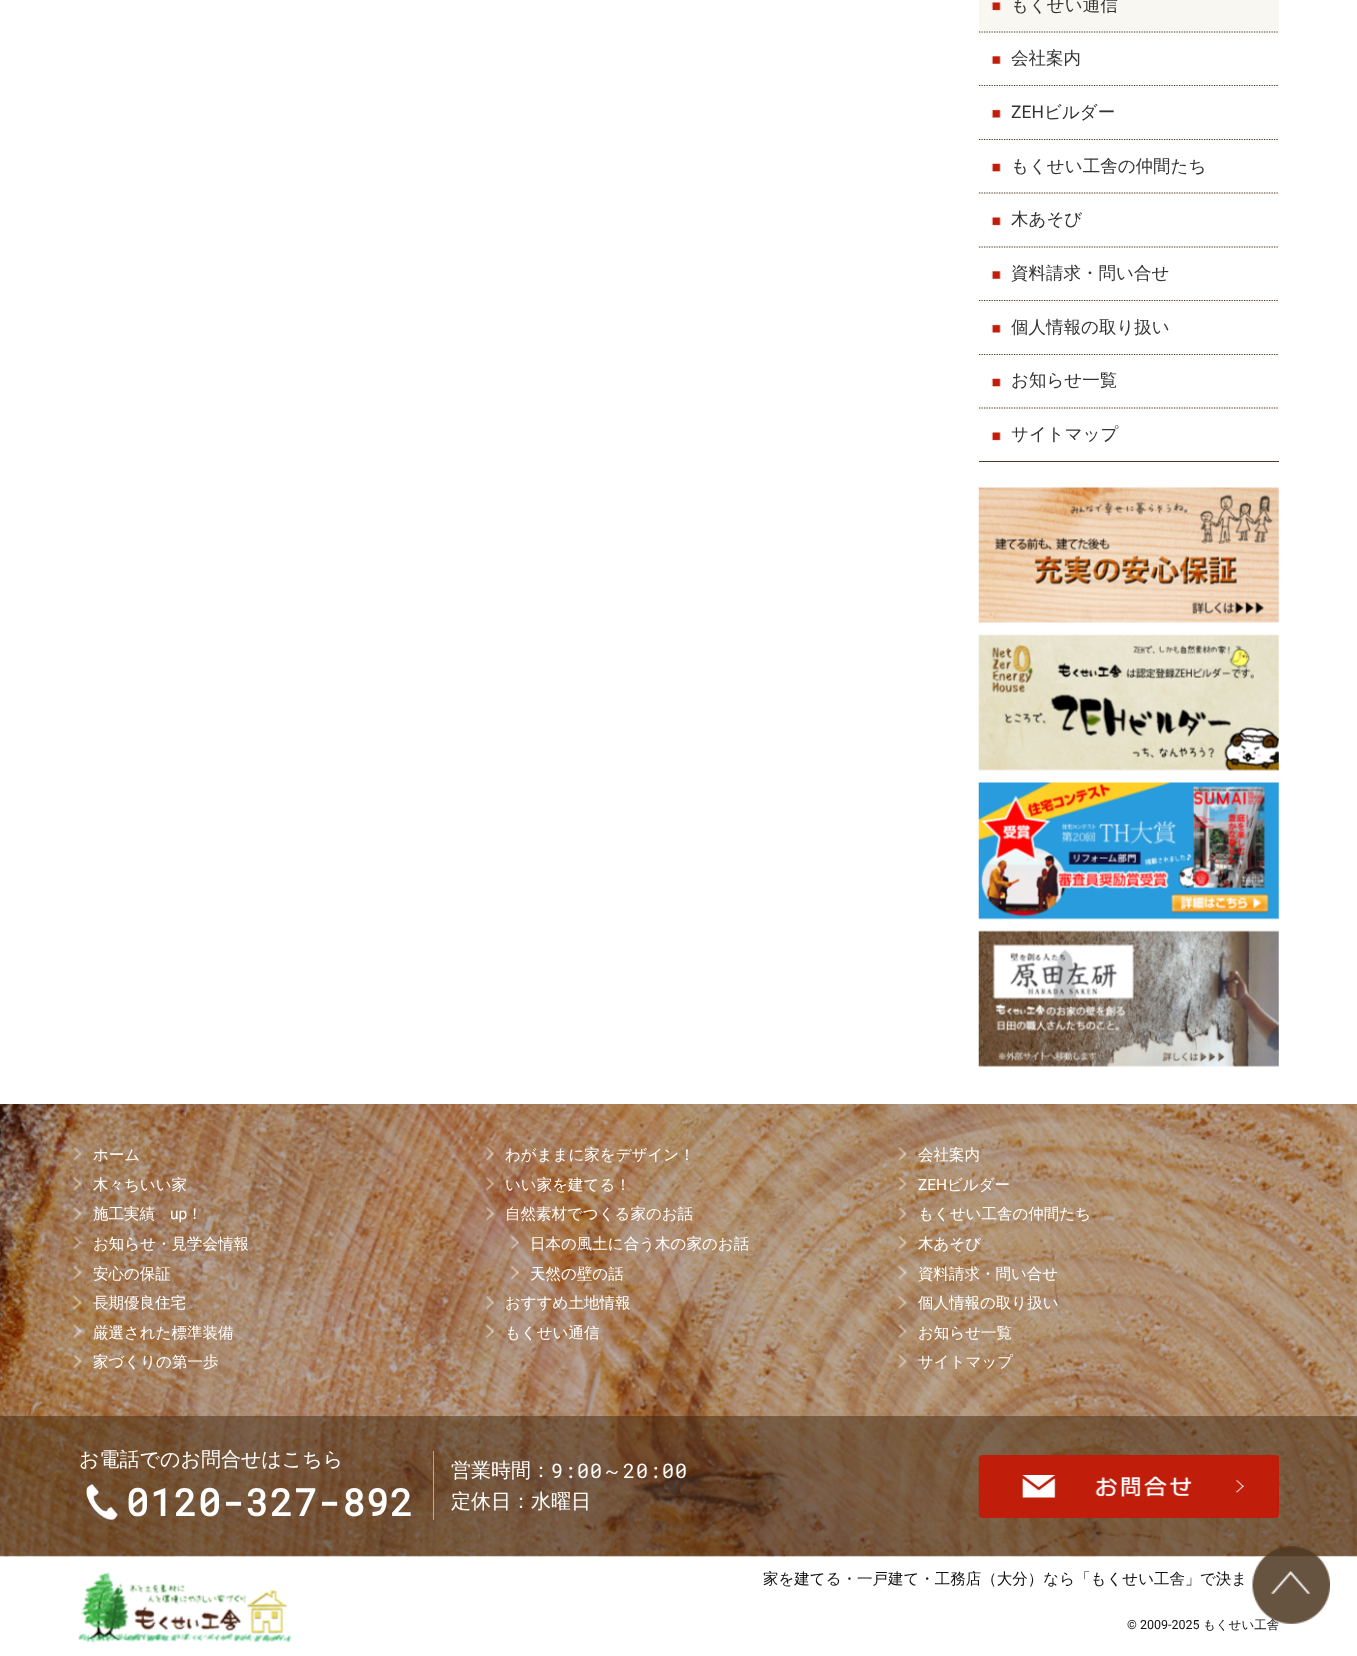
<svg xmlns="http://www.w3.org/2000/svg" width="1357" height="1656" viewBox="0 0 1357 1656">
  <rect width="100%" height="100%" fill="rgb(255,255,255)"/>
  <rect x="979" y="0" width="300" height="409" fill="rgb(249,247,242)"/>
  <rect x="979" y="461" width="300" height="1" fill="rgb(77,56,34)"/>
  <rect x="979" y="30" width="300" height="1" fill="rgb(255,255,255)"/>
  <image x="991" y="2" width="10" height="9" href="pic1.png"/>
  <text x="1011" y="11" font-family="WenQuanYi Zen Hei" font-size="17.5" font-weight="500" fill="rgb(51,51,51)">もくせい通信</text>
  <path d="M979 32H1279" fill="none" stroke="rgb(77,56,34)" stroke-width="1.2" stroke-dasharray="1.25 1.25"/>
  <path d="M979 85.5H1279" fill="none" stroke="rgb(77,56,34)" stroke-width="1.2" stroke-dasharray="1.25 1.25"/>
  <rect x="979" y="33" width="300" height="52" fill="rgb(255,255,255)"/>
  <image x="991" y="56" width="10" height="8" href="pic2.png"/>
  <text x="1011" y="64" font-family="WenQuanYi Zen Hei" font-size="17.5" font-weight="500" fill="rgb(51,51,51)">会社案内</text>
  <path d="M979 139.5H1279" fill="none" stroke="rgb(77,56,34)" stroke-width="1.2" stroke-dasharray="1.25 1.25"/>
  <rect x="979" y="88" width="300" height="51" fill="rgb(255,255,255)"/>
  <rect x="979" y="86" width="300" height="1" fill="rgb(255,255,255)"/>
  <image x="991" y="109" width="10" height="9" href="pic3.png"/>
  <text x="1011" y="118" font-family="Roboto" font-size="17.5" fill="rgb(51,51,51)">ZEH</text>
  <text x="1044" y="118" font-family="WenQuanYi Zen Hei" font-size="17.5" font-weight="500" fill="rgb(51,51,51)">ビルダー</text>
  <rect x="979" y="140" width="300" height="52" fill="rgb(255,255,255)"/>
  <image x="991" y="163" width="10" height="9" href="pic4.png"/>
  <text x="1011" y="172" font-family="WenQuanYi Zen Hei" font-size="17.5" font-weight="500" fill="rgb(51,51,51)">もくせい工舎の仲間たち</text>
  <path d="M979 193H1279" fill="none" stroke="rgb(77,56,34)" stroke-width="1.2" stroke-dasharray="1.25 1.25"/>
  <rect x="979" y="194" width="300" height="52" fill="rgb(255,255,255)"/>
  <image x="991" y="217" width="10" height="9" href="pic5.png"/>
  <text x="1011" y="225" font-family="WenQuanYi Zen Hei" font-size="17.5" font-weight="500" fill="rgb(51,51,51)">木あそび</text>
  <path d="M979 247H1279" fill="none" stroke="rgb(77,56,34)" stroke-width="1.2" stroke-dasharray="1.25 1.25"/>
  <path d="M979 300.5H1279" fill="none" stroke="rgb(77,56,34)" stroke-width="1.2" stroke-dasharray="1.25 1.25"/>
  <rect x="979" y="248" width="300" height="52" fill="rgb(255,255,255)"/>
  <image x="991" y="271" width="10" height="8" href="pic2.png"/>
  <text x="1011" y="279" font-family="WenQuanYi Zen Hei" font-size="17.5" font-weight="500" fill="rgb(51,51,51)">資料請求・問い合せ</text>
  <path d="M979 354.5H1279" fill="none" stroke="rgb(77,56,34)" stroke-width="1.2" stroke-dasharray="1.25 1.25"/>
  <rect x="979" y="303" width="300" height="51" fill="rgb(255,255,255)"/>
  <rect x="979" y="301" width="300" height="1" fill="rgb(255,255,255)"/>
  <image x="991" y="324" width="10" height="9" href="pic3.png"/>
  <text x="1011" y="333" font-family="WenQuanYi Zen Hei" font-size="17.5" font-weight="500" fill="rgb(51,51,51)">個人情報の取り扱い</text>
  <rect x="979" y="355" width="300" height="52" fill="rgb(255,255,255)"/>
  <image x="991" y="378" width="10" height="9" href="pic4.png"/>
  <text x="1011" y="386" font-family="WenQuanYi Zen Hei" font-size="17.5" font-weight="500" fill="rgb(51,51,51)">お知らせ一覧</text>
  <path d="M979 408H1279" fill="none" stroke="rgb(77,56,34)" stroke-width="1.2" stroke-dasharray="1.25 1.25"/>
  <image x="991" y="432" width="10" height="9" href="pic5.png"/>
  <text x="1011" y="440" font-family="WenQuanYi Zen Hei" font-size="17.5" font-weight="500" fill="rgb(51,51,51)">サイトマップ</text>
  <image x="978" y="487" width="301" height="136" href="pic6.png"/>
  <image x="978" y="634" width="301" height="137" href="pic7.png"/>
  <image x="978" y="782" width="301" height="138" href="pic8.png"/>
  <image x="978" y="930" width="301" height="137" href="pic9.png"/>
  <image x="0" y="1104" width="1357" height="453" href="pic10.png"/>
  <image x="73" y="1147" width="9" height="14" href="pic11.png"/>
  <text x="93" y="1160" font-family="WenQuanYi Zen Hei" font-size="15.5" font-weight="500" fill="rgb(255,255,255)">ホーム</text>
  <image x="73" y="1177" width="9" height="14" href="pic12.png"/>
  <text x="93" y="1190" font-family="WenQuanYi Zen Hei" font-size="15.5" font-weight="500" fill="rgb(255,255,255)">木々ちいい家</text>
  <image x="73" y="1207" width="9" height="14" href="pic13.png"/>
  <text x="93" y="1219" font-family="WenQuanYi Zen Hei" font-size="15.5" font-weight="500" fill="rgb(255,255,255)">施工実績</text>
  <text x="170" y="1219" font-family="Roboto" font-size="15.5" fill="rgb(255,255,255)">up</text>
  <text x="187" y="1219" font-family="WenQuanYi Zen Hei" font-size="15.5" font-weight="500" fill="rgb(255,255,255)">！</text>
  <image x="73" y="1235" width="9" height="15" href="pic14.png"/>
  <text x="93" y="1249" font-family="WenQuanYi Zen Hei" font-size="15.5" font-weight="500" fill="rgb(255,255,255)">お知らせ・見学会情報</text>
  <image x="73" y="1265" width="9" height="15" href="pic15.png"/>
  <text x="93" y="1279" font-family="WenQuanYi Zen Hei" font-size="15.5" font-weight="500" fill="rgb(255,255,255)">安心の保証</text>
  <image x="73" y="1295" width="9" height="15" href="pic16.png"/>
  <text x="93" y="1308" font-family="WenQuanYi Zen Hei" font-size="15.5" font-weight="500" fill="rgb(255,255,255)">長期優良住宅</text>
  <image x="73" y="1324" width="9" height="14" href="pic17.png"/>
  <text x="93" y="1338" font-family="WenQuanYi Zen Hei" font-size="15.5" font-weight="500" fill="rgb(255,255,255)">厳選された標準装備</text>
  <image x="73" y="1354" width="9" height="14" href="pic18.png"/>
  <text x="93" y="1367" font-family="WenQuanYi Zen Hei" font-size="15.5" font-weight="500" fill="rgb(255,255,255)">家づくりの第一歩</text>
  <image x="486" y="1147" width="8" height="14" href="pic19.png"/>
  <text x="505" y="1160" font-family="WenQuanYi Zen Hei" font-size="15.5" font-weight="500" fill="rgb(255,255,255)">わがままに家をデザイン！</text>
  <image x="486" y="1177" width="8" height="14" href="pic20.png"/>
  <text x="505" y="1190" font-family="WenQuanYi Zen Hei" font-size="15.5" font-weight="500" fill="rgb(255,255,255)">いい家を建てる！</text>
  <image x="486" y="1207" width="8" height="14" href="pic21.png"/>
  <text x="505" y="1219" font-family="WenQuanYi Zen Hei" font-size="15.5" font-weight="500" fill="rgb(255,255,255)">自然素材でつくる家のお話</text>
  <image x="511" y="1235" width="8" height="15" href="pic22.png"/>
  <text x="530" y="1249" font-family="WenQuanYi Zen Hei" font-size="15.5" font-weight="500" fill="rgb(255,255,255)">日本の風土に合う木の家のお話</text>
  <image x="511" y="1265" width="8" height="15" href="pic23.png"/>
  <text x="530" y="1279" font-family="WenQuanYi Zen Hei" font-size="15.5" font-weight="500" fill="rgb(255,255,255)">天然の壁の話</text>
  <image x="486" y="1295" width="8" height="15" href="pic24.png"/>
  <text x="505" y="1308" font-family="WenQuanYi Zen Hei" font-size="15.5" font-weight="500" fill="rgb(255,255,255)">おすすめ土地情報</text>
  <image x="486" y="1324" width="8" height="14" href="pic25.png"/>
  <text x="505" y="1338" font-family="WenQuanYi Zen Hei" font-size="15.5" font-weight="500" fill="rgb(255,255,255)">もくせい通信</text>
  <image x="898" y="1147" width="9" height="14" href="pic26.png"/>
  <text x="918" y="1160" font-family="WenQuanYi Zen Hei" font-size="15.5" font-weight="500" fill="rgb(255,255,255)">会社案内</text>
  <image x="898" y="1177" width="9" height="14" href="pic27.png"/>
  <text x="918" y="1190" font-family="Roboto" font-size="15.5" fill="rgb(255,255,255)">ZEH</text>
  <text x="947" y="1190" font-family="WenQuanYi Zen Hei" font-size="15.5" font-weight="500" fill="rgb(255,255,255)">ビルダー</text>
  <image x="898" y="1207" width="9" height="14" href="pic28.png"/>
  <text x="918" y="1219" font-family="WenQuanYi Zen Hei" font-size="15.5" font-weight="500" fill="rgb(255,255,255)">もくせい工舎の仲間たち</text>
  <image x="898" y="1235" width="9" height="15" href="pic29.png"/>
  <text x="918" y="1249" font-family="WenQuanYi Zen Hei" font-size="15.5" font-weight="500" fill="rgb(255,255,255)">木あそび</text>
  <image x="898" y="1265" width="9" height="15" href="pic30.png"/>
  <text x="918" y="1279" font-family="WenQuanYi Zen Hei" font-size="15.5" font-weight="500" fill="rgb(255,255,255)">資料請求・問い合せ</text>
  <image x="898" y="1295" width="9" height="15" href="pic31.png"/>
  <text x="918" y="1308" font-family="WenQuanYi Zen Hei" font-size="15.5" font-weight="500" fill="rgb(255,255,255)">個人情報の取り扱い</text>
  <image x="898" y="1324" width="9" height="14" href="pic32.png"/>
  <text x="918" y="1338" font-family="WenQuanYi Zen Hei" font-size="15.5" font-weight="500" fill="rgb(255,255,255)">お知らせ一覧</text>
  <image x="898" y="1354" width="9" height="14" href="pic33.png"/>
  <text x="918" y="1367" font-family="WenQuanYi Zen Hei" font-size="15.5" font-weight="500" fill="rgb(255,255,255)">サイトマップ</text>
  <rect x="0" y="1416" width="1357" height="140" fill="rgba(66,39,15,0.5)"/>
  <text x="79" y="1466" font-family="WenQuanYi Zen Hei" font-size="20" font-weight="500" fill="rgb(255,255,255)">お電話でのお問合せはこちら</text>
  <image x="86" y="1484" width="32" height="36" href="pic34.png"/>
  <text x="126" y="1516" font-family="Roboto Mono" font-size="37.5" font-weight="bold" letter-spacing="1.5" fill="rgb(255,255,255)">0120-327-892</text>
  <rect x="433" y="1451" width="1" height="69" fill="rgba(255,255,255,0.5)"/>
  <text x="451" y="1477" font-family="WenQuanYi Zen Hei" font-size="20" font-weight="500" fill="rgb(255,255,255)">営業時間：</text>
  <text x="551" y="1478" font-family="Roboto Mono" font-size="20" letter-spacing="1" fill="rgb(255,255,255)">9:00</text>
  <text x="602" y="1478" font-family="WenQuanYi Zen Hei" font-size="20" font-weight="500" letter-spacing="1" fill="rgb(255,255,255)">～</text>
  <text x="623" y="1478" font-family="Roboto Mono" font-size="20" letter-spacing="1" fill="rgb(255,255,255)">20:00</text>
  <text x="451" y="1508" font-family="WenQuanYi Zen Hei" font-size="20" font-weight="500" fill="rgb(255,255,255)">定休日：水曜日</text>
  <rect x="979" y="1455" width="300" height="63" rx="4" fill="rgb(193,29,11)"/>
  <image x="978" y="1455" width="301" height="63" href="pic35.png"/>
  <image x="78" y="1572" width="214" height="71" href="pic36.png"/>
  <g font-family="WenQuanYi Zen Hei" font-size="15.5" font-weight="500" fill="rgb(17,17,17)">
    <text x="763" y="1584">家を建てる・</text>
    <text x="857" y="1584">一戸建て・工務店（大分）なら「もくせい工舎」</text>
    <text x="1200" y="1584">で決ま</text>
  </g>
  <text x="1127" y="1629" font-family="Roboto" font-size="12.5" fill="rgb(17,17,17)">© 2009-2025</text>
  <text x="1203" y="1629" font-family="WenQuanYi Zen Hei" font-size="12.5" font-weight="500" fill="rgb(17,17,17)">もくせい工舎</text>
  <image x="1252" y="1546" width="78" height="78" href="pic37.png"/>
</svg>
